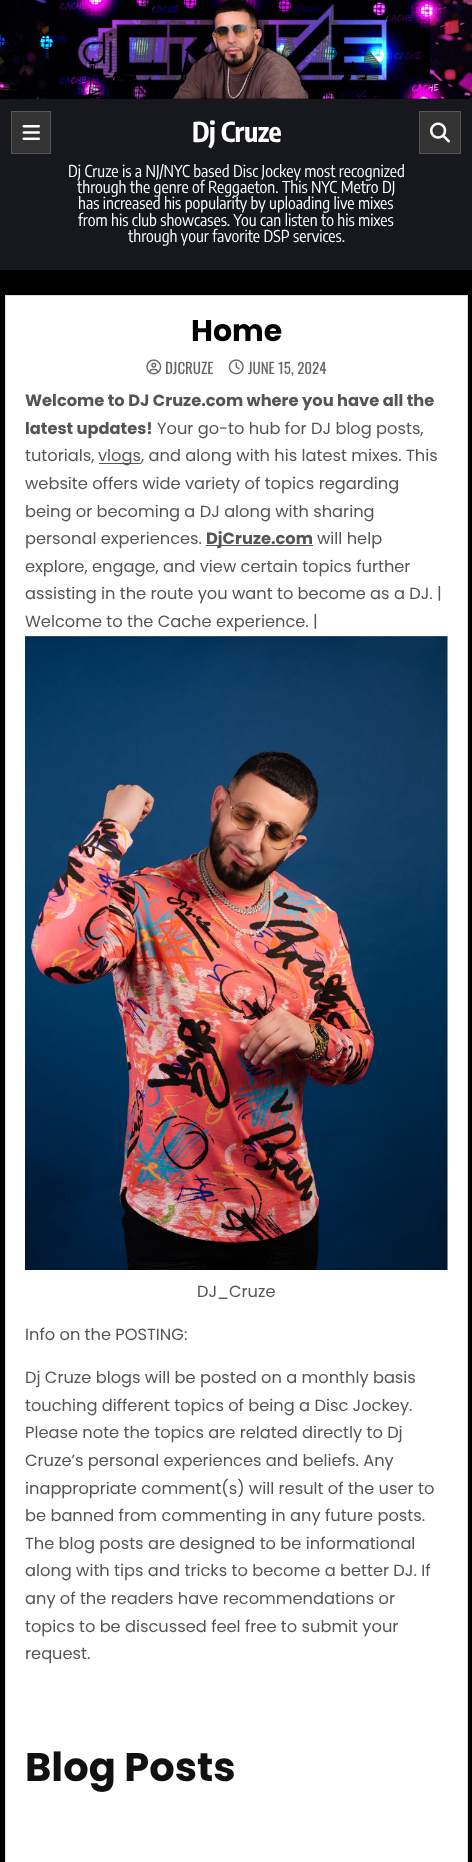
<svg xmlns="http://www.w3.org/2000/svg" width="472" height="1862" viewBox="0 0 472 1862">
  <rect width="100%" height="100%" fill="rgb(0,0,0)"/>
  <image x="0" y="0" width="472" height="99" href="pic1.png"/>
  <rect x="0" y="101" width="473" height="172" fill="rgba(0,0,0,0.5)" filter="blur(3px)"/>
  <rect x="0" y="99" width="472" height="171" fill="rgb(22,24,30)"/>
  <rect x="11.5" y="111.5" width="39" height="42" fill="rgb(51,51,51)" stroke="rgb(85,85,85)"/>
  <image x="22" y="125" width="18" height="15" href="pic2.png"/>
  <text x="192" y="142" font-family="Encode Sans Condensed" font-size="27.5" font-weight="bold" letter-spacing="-0.5" fill="rgb(255,255,255)">Dj Cruze</text>
  <g font-family="Encode Sans Condensed" font-size="16.25" fill="rgb(255,255,255)">
    <text x="68" y="177">Dj Cruze is a NJ/NYC based Disc Jockey most recognized</text>
    <text x="77" y="193">through the genre of Reggaeton. This NYC Metro DJ</text>
    <text>
      <tspan x="78" y="209">has increased his popularity by uploading live mixes</tspan>
      <tspan x="78" y="226">from his club showcases. You can listen to his mixes</tspan>
    </text>
    <text x="128" y="242">through your favorite DSP services.</text>
  </g>
  <rect x="419.5" y="111.5" width="41" height="42" fill="rgb(51,51,51)" stroke="rgb(85,85,85)"/>
  <image x="430" y="122" width="20" height="21" href="pic3.png"/>
  <rect x="5.5" y="295.5" width="462" height="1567" fill="rgb(255,255,255)" stroke="rgb(221,221,221)"/>
  <text x="191" y="341" font-family="Poppins" font-size="30" font-weight="bold" fill="rgb(0,0,0)">Home</text>
  <image x="146" y="359" width="16" height="16" href="pic4.png"/>
  <text x="165" y="374" font-family="Oswald" font-size="15" fill="rgb(102,102,102)">DJCRUZE</text>
  <image x="228" y="359" width="16" height="16" href="pic5.png"/>
  <text x="248" y="374" font-family="Oswald" font-size="15" fill="rgb(102,102,102)">JUNE 15, 2024</text>
  <g font-family="Poppins" font-size="16.25" font-weight="bold" fill="rgb(85,85,85)">
    <text>
      <tspan x="25" y="406">Welcome to DJ Cruze.com where you have all the</tspan>
      <tspan x="25" y="434">latest updates!</tspan>
    </text>
  </g>
  <g font-family="Poppins" font-size="16.25" fill="rgb(85,85,85)">
    <text x="157" y="434">Your go-to hub for DJ blog posts,</text>
    <text x="25" y="461">tutorials,</text>
  </g>
  <rect x="99" y="463" width="42" height="1" fill="rgb(85,85,85)"/>
  <g font-family="Poppins" font-size="16.25" fill="rgb(85,85,85)">
    <text x="98" y="461">vlogs, and along with his latest mixes. This</text>
    <text>
      <tspan x="25" y="489">website offers wide variety of topics regarding</tspan>
      <tspan x="25" y="517">being or becoming a DJ along with sharing</tspan>
      <tspan x="25" y="544">personal experiences.</tspan>
    </text>
  </g>
  <rect x="206" y="545" width="107" height="1" fill="rgb(85,85,85)"/>
  <text x="206" y="544" font-family="Poppins" font-size="16.25" font-weight="bold" fill="rgb(85,85,85)">DjCruze.com</text>
  <g font-family="Poppins" font-size="16.25" fill="rgb(85,85,85)">
    <text x="317" y="544">will help</text>
    <text>
      <tspan x="25" y="572">explore, engage, and view certain topics further</tspan>
      <tspan x="25" y="599">assisting in the route you want to become as a DJ. |</tspan>
      <tspan x="25" y="627">Welcome to the Cache experience. |</tspan>
    </text>
  </g>
  <image x="25" y="636" width="423" height="634" href="pic6.png"/>
  <g font-family="Poppins" font-size="16.25" fill="rgb(85,85,85)">
    <text x="197" y="1297">DJ_Cruze</text>
    <text x="25" y="1340">Info on the POSTING:</text>
    <text>
      <tspan x="25" y="1383">Dj Cruze blogs will be posted on a monthly basis</tspan>
      <tspan x="25" y="1411">touching different topics of being a Disc Jockey.</tspan>
      <tspan x="25" y="1438">Please note the topics are related directly to Dj</tspan>
      <tspan x="25" y="1466">Cruze’s personal experiences and beliefs. Any</tspan>
      <tspan x="25" y="1494">inappropriate comment(s) will result of the user to</tspan>
      <tspan x="25" y="1521">be banned from commenting in any future posts.</tspan>
      <tspan x="25" y="1549">The blog posts are designed to be informational</tspan>
      <tspan x="25" y="1576">along with tips and tricks to become a better DJ. If</tspan>
      <tspan x="25" y="1604">any of the readers have recommendations or</tspan>
      <tspan x="25" y="1632">topics to be discussed feel free to submit your</tspan>
      <tspan x="25" y="1659">request.</tspan>
    </text>
  </g>
  <text x="25" y="1781" font-family="Poppins" font-size="40" font-weight="bold" fill="rgb(17,17,17)">Blog Posts</text>
</svg>
